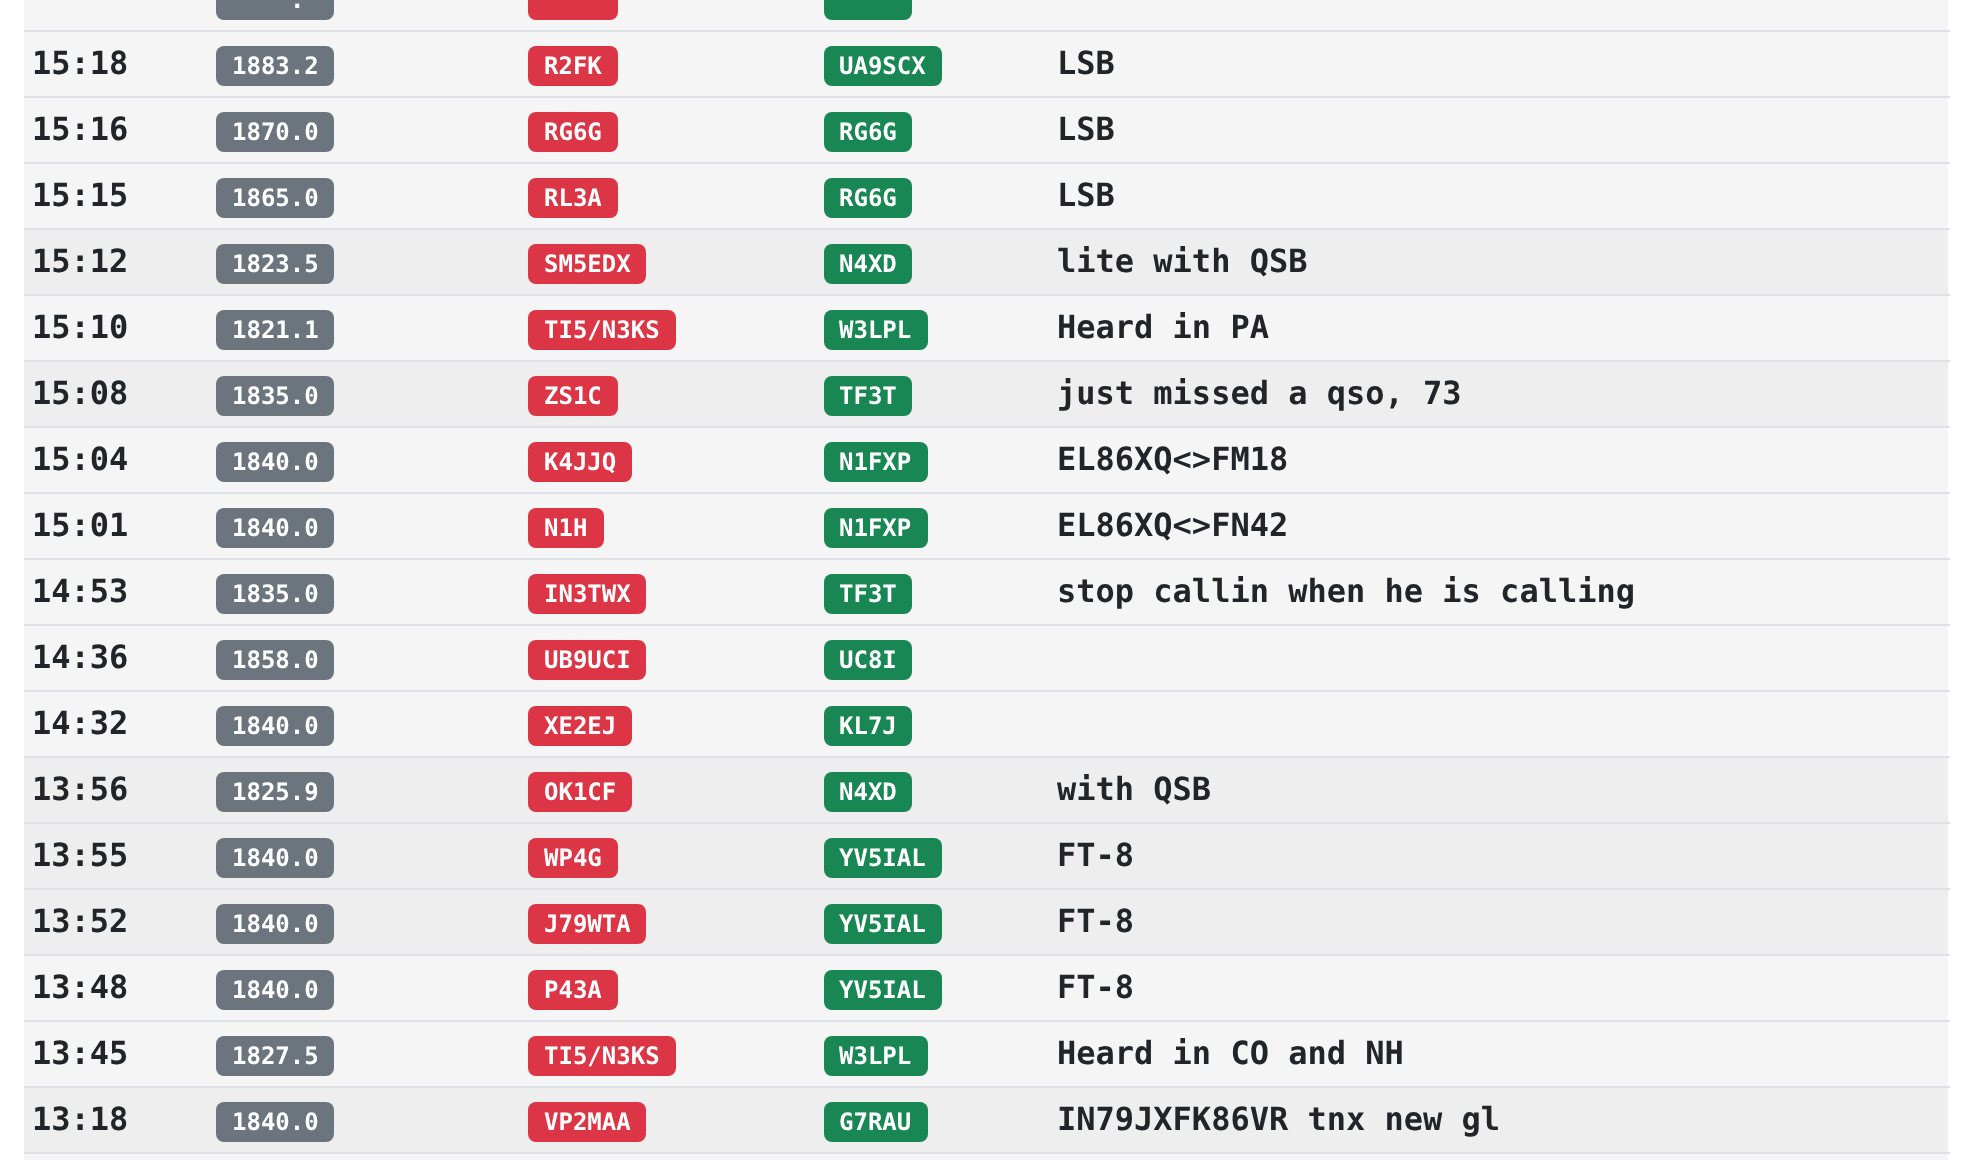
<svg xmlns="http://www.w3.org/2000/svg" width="1971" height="1160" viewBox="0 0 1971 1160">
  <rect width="100%" height="100%" fill="rgb(255,255,255)"/>
  <rect x="24" y="0" width="1924" height="1160" fill="rgb(245,245,245)"/>
  <rect x="216" y="-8" width="118" height="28" rx="8" fill="rgb(108,117,125)"/>
  <text x="290" y="8" font-family="DejaVu Sans Mono" font-size="24" font-weight="bold" fill="rgb(255,255,255)">.</text>
  <rect x="528" y="-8" width="90" height="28" rx="8" fill="rgb(220,53,69)"/>
  <rect x="824" y="-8" width="88" height="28" rx="8" fill="rgb(25,135,84)"/>
  <rect x="24" y="30" width="1926" height="2" fill="rgb(222,226,230)"/>
  <text x="32" y="74" font-family="DejaVu Sans Mono" font-size="32" font-weight="bold" fill="rgb(33,37,41)">15:18</text>
  <rect x="216" y="46" width="118" height="40" rx="8" fill="rgb(108,117,125)"/>
  <text x="232" y="74" font-family="DejaVu Sans Mono" font-size="24" font-weight="bold" fill="rgb(255,255,255)">1883.2</text>
  <rect x="528" y="46" width="90" height="40" rx="8" fill="rgb(220,53,69)"/>
  <text x="544" y="74" font-family="DejaVu Sans Mono" font-size="24" font-weight="bold" fill="rgb(255,255,255)">R2FK</text>
  <rect x="824" y="46" width="118" height="40" rx="8" fill="rgb(25,135,84)"/>
  <text x="839" y="74" font-family="DejaVu Sans Mono" font-size="24" font-weight="bold" fill="rgb(255,255,255)">UA9SCX</text>
  <rect x="24" y="96" width="1926" height="2" fill="rgb(222,226,230)"/>
  <g font-family="DejaVu Sans Mono" font-size="32" font-weight="bold" fill="rgb(33,37,41)">
    <text x="1057" y="74">LSB</text>
    <text x="32" y="140">15:16</text>
  </g>
  <rect x="216" y="112" width="118" height="40" rx="8" fill="rgb(108,117,125)"/>
  <text x="232" y="140" font-family="DejaVu Sans Mono" font-size="24" font-weight="bold" fill="rgb(255,255,255)">1870.0</text>
  <rect x="528" y="112" width="90" height="40" rx="8" fill="rgb(220,53,69)"/>
  <text x="544" y="140" font-family="DejaVu Sans Mono" font-size="24" font-weight="bold" fill="rgb(255,255,255)">RG6G</text>
  <rect x="824" y="112" width="88" height="40" rx="8" fill="rgb(25,135,84)"/>
  <text x="839" y="140" font-family="DejaVu Sans Mono" font-size="24" font-weight="bold" fill="rgb(255,255,255)">RG6G</text>
  <rect x="24" y="162" width="1926" height="2" fill="rgb(222,226,230)"/>
  <g font-family="DejaVu Sans Mono" font-size="32" font-weight="bold" fill="rgb(33,37,41)">
    <text x="1057" y="140">LSB</text>
    <text x="32" y="206">15:15</text>
  </g>
  <rect x="216" y="178" width="118" height="40" rx="8" fill="rgb(108,117,125)"/>
  <text x="232" y="206" font-family="DejaVu Sans Mono" font-size="24" font-weight="bold" fill="rgb(255,255,255)">1865.0</text>
  <rect x="528" y="178" width="90" height="40" rx="8" fill="rgb(220,53,69)"/>
  <text x="544" y="206" font-family="DejaVu Sans Mono" font-size="24" font-weight="bold" fill="rgb(255,255,255)">RL3A</text>
  <rect x="824" y="178" width="88" height="40" rx="8" fill="rgb(25,135,84)"/>
  <text x="839" y="206" font-family="DejaVu Sans Mono" font-size="24" font-weight="bold" fill="rgb(255,255,255)">RG6G</text>
  <rect x="24" y="228" width="1926" height="2" fill="rgb(222,226,230)"/>
  <text x="1057" y="206" font-family="DejaVu Sans Mono" font-size="32" font-weight="bold" fill="rgb(33,37,41)">LSB</text>
  <rect x="24" y="230" width="1924" height="64" fill="rgb(238,238,238)"/>
  <text x="32" y="272" font-family="DejaVu Sans Mono" font-size="32" font-weight="bold" fill="rgb(33,37,41)">15:12</text>
  <rect x="216" y="244" width="118" height="40" rx="8" fill="rgb(108,117,125)"/>
  <text x="232" y="272" font-family="DejaVu Sans Mono" font-size="24" font-weight="bold" fill="rgb(255,255,255)">1823.5</text>
  <rect x="528" y="244" width="118" height="40" rx="8" fill="rgb(220,53,69)"/>
  <text x="544" y="272" font-family="DejaVu Sans Mono" font-size="24" font-weight="bold" fill="rgb(255,255,255)">SM5EDX</text>
  <rect x="824" y="244" width="88" height="40" rx="8" fill="rgb(25,135,84)"/>
  <text x="839" y="272" font-family="DejaVu Sans Mono" font-size="24" font-weight="bold" fill="rgb(255,255,255)">N4XD</text>
  <rect x="24" y="294" width="1926" height="2" fill="rgb(222,226,230)"/>
  <g font-family="DejaVu Sans Mono" font-size="32" font-weight="bold" fill="rgb(33,37,41)">
    <text x="1057" y="272">lite with QSB</text>
    <text x="32" y="338">15:10</text>
  </g>
  <rect x="216" y="310" width="118" height="40" rx="8" fill="rgb(108,117,125)"/>
  <text x="232" y="338" font-family="DejaVu Sans Mono" font-size="24" font-weight="bold" fill="rgb(255,255,255)">1821.1</text>
  <rect x="528" y="310" width="148" height="40" rx="8" fill="rgb(220,53,69)"/>
  <text x="544" y="338" font-family="DejaVu Sans Mono" font-size="24" font-weight="bold" fill="rgb(255,255,255)">TI5/N3KS</text>
  <rect x="824" y="310" width="104" height="40" rx="8" fill="rgb(25,135,84)"/>
  <text x="839" y="338" font-family="DejaVu Sans Mono" font-size="24" font-weight="bold" fill="rgb(255,255,255)">W3LPL</text>
  <rect x="24" y="360" width="1926" height="2" fill="rgb(222,226,230)"/>
  <text x="1057" y="338" font-family="DejaVu Sans Mono" font-size="32" font-weight="bold" fill="rgb(33,37,41)">Heard in PA</text>
  <rect x="24" y="362" width="1924" height="64" fill="rgb(238,238,238)"/>
  <text x="32" y="404" font-family="DejaVu Sans Mono" font-size="32" font-weight="bold" fill="rgb(33,37,41)">15:08</text>
  <rect x="216" y="376" width="118" height="40" rx="8" fill="rgb(108,117,125)"/>
  <text x="232" y="404" font-family="DejaVu Sans Mono" font-size="24" font-weight="bold" fill="rgb(255,255,255)">1835.0</text>
  <rect x="528" y="376" width="90" height="40" rx="8" fill="rgb(220,53,69)"/>
  <text x="544" y="404" font-family="DejaVu Sans Mono" font-size="24" font-weight="bold" fill="rgb(255,255,255)">ZS1C</text>
  <rect x="824" y="376" width="88" height="40" rx="8" fill="rgb(25,135,84)"/>
  <text x="839" y="404" font-family="DejaVu Sans Mono" font-size="24" font-weight="bold" fill="rgb(255,255,255)">TF3T</text>
  <rect x="24" y="426" width="1926" height="2" fill="rgb(222,226,230)"/>
  <g font-family="DejaVu Sans Mono" font-size="32" font-weight="bold" fill="rgb(33,37,41)">
    <text x="1057" y="404">just missed a qso, 73</text>
    <text x="32" y="470">15:04</text>
  </g>
  <rect x="216" y="442" width="118" height="40" rx="8" fill="rgb(108,117,125)"/>
  <text x="232" y="470" font-family="DejaVu Sans Mono" font-size="24" font-weight="bold" fill="rgb(255,255,255)">1840.0</text>
  <rect x="528" y="442" width="104" height="40" rx="8" fill="rgb(220,53,69)"/>
  <text x="544" y="470" font-family="DejaVu Sans Mono" font-size="24" font-weight="bold" fill="rgb(255,255,255)">K4JJQ</text>
  <rect x="824" y="442" width="104" height="40" rx="8" fill="rgb(25,135,84)"/>
  <text x="839" y="470" font-family="DejaVu Sans Mono" font-size="24" font-weight="bold" fill="rgb(255,255,255)">N1FXP</text>
  <rect x="24" y="492" width="1926" height="2" fill="rgb(222,226,230)"/>
  <g font-family="DejaVu Sans Mono" font-size="32" font-weight="bold" fill="rgb(33,37,41)">
    <text x="1057" y="470">EL86XQ&lt;&gt;FM18</text>
    <text x="32" y="536">15:01</text>
  </g>
  <rect x="216" y="508" width="118" height="40" rx="8" fill="rgb(108,117,125)"/>
  <text x="232" y="536" font-family="DejaVu Sans Mono" font-size="24" font-weight="bold" fill="rgb(255,255,255)">1840.0</text>
  <rect x="528" y="508" width="76" height="40" rx="8" fill="rgb(220,53,69)"/>
  <text x="544" y="536" font-family="DejaVu Sans Mono" font-size="24" font-weight="bold" fill="rgb(255,255,255)">N1H</text>
  <rect x="824" y="508" width="104" height="40" rx="8" fill="rgb(25,135,84)"/>
  <text x="839" y="536" font-family="DejaVu Sans Mono" font-size="24" font-weight="bold" fill="rgb(255,255,255)">N1FXP</text>
  <rect x="24" y="558" width="1926" height="2" fill="rgb(222,226,230)"/>
  <g font-family="DejaVu Sans Mono" font-size="32" font-weight="bold" fill="rgb(33,37,41)">
    <text x="1057" y="536">EL86XQ&lt;&gt;FN42</text>
    <text x="32" y="602">14:53</text>
  </g>
  <rect x="216" y="574" width="118" height="40" rx="8" fill="rgb(108,117,125)"/>
  <text x="232" y="602" font-family="DejaVu Sans Mono" font-size="24" font-weight="bold" fill="rgb(255,255,255)">1835.0</text>
  <rect x="528" y="574" width="118" height="40" rx="8" fill="rgb(220,53,69)"/>
  <text x="544" y="602" font-family="DejaVu Sans Mono" font-size="24" font-weight="bold" fill="rgb(255,255,255)">IN3TWX</text>
  <rect x="824" y="574" width="88" height="40" rx="8" fill="rgb(25,135,84)"/>
  <text x="839" y="602" font-family="DejaVu Sans Mono" font-size="24" font-weight="bold" fill="rgb(255,255,255)">TF3T</text>
  <rect x="24" y="624" width="1926" height="2" fill="rgb(222,226,230)"/>
  <g font-family="DejaVu Sans Mono" font-size="32" font-weight="bold" fill="rgb(33,37,41)">
    <text x="1057" y="602">stop callin when he is calling</text>
    <text x="32" y="668">14:36</text>
  </g>
  <rect x="216" y="640" width="118" height="40" rx="8" fill="rgb(108,117,125)"/>
  <text x="232" y="668" font-family="DejaVu Sans Mono" font-size="24" font-weight="bold" fill="rgb(255,255,255)">1858.0</text>
  <rect x="528" y="640" width="118" height="40" rx="8" fill="rgb(220,53,69)"/>
  <text x="544" y="668" font-family="DejaVu Sans Mono" font-size="24" font-weight="bold" fill="rgb(255,255,255)">UB9UCI</text>
  <rect x="824" y="640" width="88" height="40" rx="8" fill="rgb(25,135,84)"/>
  <text x="839" y="668" font-family="DejaVu Sans Mono" font-size="24" font-weight="bold" fill="rgb(255,255,255)">UC8I</text>
  <rect x="24" y="690" width="1926" height="2" fill="rgb(222,226,230)"/>
  <text x="32" y="734" font-family="DejaVu Sans Mono" font-size="32" font-weight="bold" fill="rgb(33,37,41)">14:32</text>
  <rect x="216" y="706" width="118" height="40" rx="8" fill="rgb(108,117,125)"/>
  <text x="232" y="734" font-family="DejaVu Sans Mono" font-size="24" font-weight="bold" fill="rgb(255,255,255)">1840.0</text>
  <rect x="528" y="706" width="104" height="40" rx="8" fill="rgb(220,53,69)"/>
  <text x="544" y="734" font-family="DejaVu Sans Mono" font-size="24" font-weight="bold" fill="rgb(255,255,255)">XE2EJ</text>
  <rect x="824" y="706" width="88" height="40" rx="8" fill="rgb(25,135,84)"/>
  <text x="839" y="734" font-family="DejaVu Sans Mono" font-size="24" font-weight="bold" fill="rgb(255,255,255)">KL7J</text>
  <rect x="24" y="756" width="1926" height="2" fill="rgb(222,226,230)"/>
  <rect x="24" y="758" width="1924" height="64" fill="rgb(238,238,238)"/>
  <text x="32" y="800" font-family="DejaVu Sans Mono" font-size="32" font-weight="bold" fill="rgb(33,37,41)">13:56</text>
  <rect x="216" y="772" width="118" height="40" rx="8" fill="rgb(108,117,125)"/>
  <text x="232" y="800" font-family="DejaVu Sans Mono" font-size="24" font-weight="bold" fill="rgb(255,255,255)">1825.9</text>
  <rect x="528" y="772" width="104" height="40" rx="8" fill="rgb(220,53,69)"/>
  <text x="544" y="800" font-family="DejaVu Sans Mono" font-size="24" font-weight="bold" fill="rgb(255,255,255)">OK1CF</text>
  <rect x="824" y="772" width="88" height="40" rx="8" fill="rgb(25,135,84)"/>
  <text x="839" y="800" font-family="DejaVu Sans Mono" font-size="24" font-weight="bold" fill="rgb(255,255,255)">N4XD</text>
  <rect x="24" y="822" width="1926" height="2" fill="rgb(222,226,230)"/>
  <text x="1057" y="800" font-family="DejaVu Sans Mono" font-size="32" font-weight="bold" fill="rgb(33,37,41)">with QSB</text>
  <rect x="24" y="824" width="1924" height="64" fill="rgb(238,238,238)"/>
  <text x="32" y="866" font-family="DejaVu Sans Mono" font-size="32" font-weight="bold" fill="rgb(33,37,41)">13:55</text>
  <rect x="216" y="838" width="118" height="40" rx="8" fill="rgb(108,117,125)"/>
  <text x="232" y="866" font-family="DejaVu Sans Mono" font-size="24" font-weight="bold" fill="rgb(255,255,255)">1840.0</text>
  <rect x="528" y="838" width="90" height="40" rx="8" fill="rgb(220,53,69)"/>
  <text x="544" y="866" font-family="DejaVu Sans Mono" font-size="24" font-weight="bold" fill="rgb(255,255,255)">WP4G</text>
  <rect x="824" y="838" width="118" height="40" rx="8" fill="rgb(25,135,84)"/>
  <text x="839" y="866" font-family="DejaVu Sans Mono" font-size="24" font-weight="bold" fill="rgb(255,255,255)">YV5IAL</text>
  <rect x="24" y="888" width="1926" height="2" fill="rgb(222,226,230)"/>
  <text x="1057" y="866" font-family="DejaVu Sans Mono" font-size="32" font-weight="bold" fill="rgb(33,37,41)">FT-8</text>
  <rect x="24" y="890" width="1924" height="64" fill="rgb(238,238,238)"/>
  <text x="32" y="932" font-family="DejaVu Sans Mono" font-size="32" font-weight="bold" fill="rgb(33,37,41)">13:52</text>
  <rect x="216" y="904" width="118" height="40" rx="8" fill="rgb(108,117,125)"/>
  <text x="232" y="932" font-family="DejaVu Sans Mono" font-size="24" font-weight="bold" fill="rgb(255,255,255)">1840.0</text>
  <rect x="528" y="904" width="118" height="40" rx="8" fill="rgb(220,53,69)"/>
  <text x="544" y="932" font-family="DejaVu Sans Mono" font-size="24" font-weight="bold" fill="rgb(255,255,255)">J79WTA</text>
  <rect x="824" y="904" width="118" height="40" rx="8" fill="rgb(25,135,84)"/>
  <text x="839" y="932" font-family="DejaVu Sans Mono" font-size="24" font-weight="bold" fill="rgb(255,255,255)">YV5IAL</text>
  <rect x="24" y="954" width="1926" height="2" fill="rgb(222,226,230)"/>
  <g font-family="DejaVu Sans Mono" font-size="32" font-weight="bold" fill="rgb(33,37,41)">
    <text x="1057" y="932">FT-8</text>
    <text x="32" y="998">13:48</text>
  </g>
  <rect x="216" y="970" width="118" height="40" rx="8" fill="rgb(108,117,125)"/>
  <text x="232" y="998" font-family="DejaVu Sans Mono" font-size="24" font-weight="bold" fill="rgb(255,255,255)">1840.0</text>
  <rect x="528" y="970" width="90" height="40" rx="8" fill="rgb(220,53,69)"/>
  <text x="544" y="998" font-family="DejaVu Sans Mono" font-size="24" font-weight="bold" fill="rgb(255,255,255)">P43A</text>
  <rect x="824" y="970" width="118" height="40" rx="8" fill="rgb(25,135,84)"/>
  <text x="839" y="998" font-family="DejaVu Sans Mono" font-size="24" font-weight="bold" fill="rgb(255,255,255)">YV5IAL</text>
  <rect x="24" y="1020" width="1926" height="2" fill="rgb(222,226,230)"/>
  <g font-family="DejaVu Sans Mono" font-size="32" font-weight="bold" fill="rgb(33,37,41)">
    <text x="1057" y="998">FT-8</text>
    <text x="32" y="1064">13:45</text>
  </g>
  <rect x="216" y="1036" width="118" height="40" rx="8" fill="rgb(108,117,125)"/>
  <text x="232" y="1064" font-family="DejaVu Sans Mono" font-size="24" font-weight="bold" fill="rgb(255,255,255)">1827.5</text>
  <rect x="528" y="1036" width="148" height="40" rx="8" fill="rgb(220,53,69)"/>
  <text x="544" y="1064" font-family="DejaVu Sans Mono" font-size="24" font-weight="bold" fill="rgb(255,255,255)">TI5/N3KS</text>
  <rect x="824" y="1036" width="104" height="40" rx="8" fill="rgb(25,135,84)"/>
  <text x="839" y="1064" font-family="DejaVu Sans Mono" font-size="24" font-weight="bold" fill="rgb(255,255,255)">W3LPL</text>
  <rect x="24" y="1086" width="1926" height="2" fill="rgb(222,226,230)"/>
  <text x="1057" y="1064" font-family="DejaVu Sans Mono" font-size="32" font-weight="bold" fill="rgb(33,37,41)">Heard in CO and NH</text>
  <rect x="24" y="1088" width="1924" height="64" fill="rgb(238,238,238)"/>
  <text x="32" y="1130" font-family="DejaVu Sans Mono" font-size="32" font-weight="bold" fill="rgb(33,37,41)">13:18</text>
  <rect x="216" y="1102" width="118" height="40" rx="8" fill="rgb(108,117,125)"/>
  <text x="232" y="1130" font-family="DejaVu Sans Mono" font-size="24" font-weight="bold" fill="rgb(255,255,255)">1840.0</text>
  <rect x="528" y="1102" width="118" height="40" rx="8" fill="rgb(220,53,69)"/>
  <text x="544" y="1130" font-family="DejaVu Sans Mono" font-size="24" font-weight="bold" fill="rgb(255,255,255)">VP2MAA</text>
  <rect x="824" y="1102" width="104" height="40" rx="8" fill="rgb(25,135,84)"/>
  <text x="839" y="1130" font-family="DejaVu Sans Mono" font-size="24" font-weight="bold" fill="rgb(255,255,255)">G7RAU</text>
  <rect x="24" y="1152" width="1926" height="2" fill="rgb(222,226,230)"/>
  <text x="1057" y="1130" font-family="DejaVu Sans Mono" font-size="32" font-weight="bold" fill="rgb(33,37,41)">IN79JXFK86VR tnx new gl</text>
</svg>
